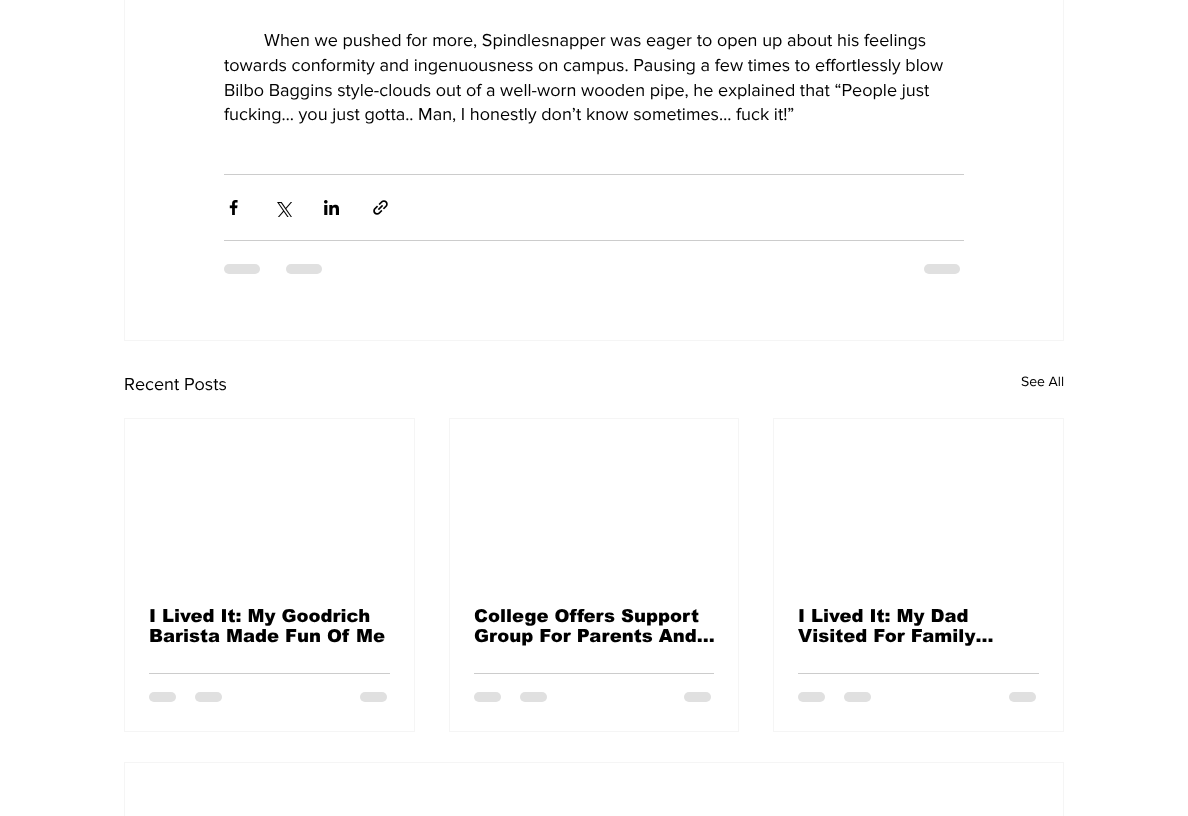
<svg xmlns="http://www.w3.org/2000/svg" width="1188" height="816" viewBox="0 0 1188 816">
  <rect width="100%" height="100%" fill="rgb(255,255,255)"/>
  <rect x="124.5" y="-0.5" width="939" height="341" fill="none" stroke="rgb(245,245,245)"/>
  <g font-family="'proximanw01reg'" font-size="18" fill="rgb(0,0,0)">
    <text x="264" y="46">When we pushed for more, Spindlesnapper was eager to open up about his feelings</text>
    <text>
      <tspan x="224" y="71">towards conformity and ingenuousness on campus. Pausing a few times to effortlessly blow</tspan>
      <tspan x="224" y="96">Bilbo Baggins style-clouds out of a well-worn wooden pipe, he explained that “People just</tspan>
      <tspan x="224" y="120">fucking… you just gotta.. Man, I honestly don’t know sometimes… fuck it!”</tspan>
    </text>
  </g>
  <rect x="224" y="174" width="740" height="1" fill="rgb(204,204,204)"/>
  <image x="229" y="200" width="9" height="15" href="pic1.png"/>
  <image x="277" y="202" width="15" height="15" href="pic2.png"/>
  <image x="324" y="200" width="15" height="15" href="pic3.png"/>
  <image x="373" y="200" width="15" height="15" href="pic4.png"/>
  <rect x="224" y="240" width="740" height="1" fill="rgb(204,204,204)"/>
  <rect x="224" y="264" width="36" height="10" rx="5" fill="rgb(224,224,224)"/>
  <rect x="286" y="264" width="36" height="10" rx="5" fill="rgb(224,224,224)"/>
  <rect x="924" y="264" width="36" height="10" rx="5" fill="rgb(224,224,224)"/>
  <text x="124" y="390" font-family="'proximanw01reg'" font-size="18" fill="rgb(0,0,0)">Recent Posts</text>
  <text x="1021" y="386" font-family="'proximanw01reg'" font-size="14" fill="rgb(0,0,0)">See All</text>
  <rect x="124.5" y="418.5" width="290" height="313" fill="none" stroke="rgb(245,245,245)"/>
  <g font-family="arial" font-size="18" font-weight="900" fill="rgb(0,0,0)">
    <text>
      <tspan x="149" y="622">I Lived It: My Goodrich</tspan>
      <tspan x="149" y="642">Barista Made Fun Of Me</tspan>
    </text>
  </g>
  <rect x="149" y="673" width="241" height="1" fill="rgb(204,204,204)"/>
  <rect x="149" y="692" width="27" height="10" rx="5" fill="rgb(224,224,224)"/>
  <rect x="195" y="692" width="27" height="10" rx="5" fill="rgb(224,224,224)"/>
  <rect x="360" y="692" width="27" height="10" rx="5" fill="rgb(224,224,224)"/>
  <rect x="449.5" y="418.5" width="289" height="313" fill="none" stroke="rgb(245,245,245)"/>
  <g font-family="arial" font-size="18" font-weight="900" fill="rgb(0,0,0)">
    <text>
      <tspan x="474" y="622">College Offers Support</tspan>
      <tspan x="474" y="642">Group For Parents And…</tspan>
    </text>
  </g>
  <rect x="474" y="673" width="240" height="1" fill="rgb(204,204,204)"/>
  <rect x="474" y="692" width="27" height="10" rx="5" fill="rgb(224,224,224)"/>
  <rect x="520" y="692" width="27" height="10" rx="5" fill="rgb(224,224,224)"/>
  <rect x="684" y="692" width="27" height="10" rx="5" fill="rgb(224,224,224)"/>
  <rect x="773.5" y="418.5" width="290" height="313" fill="none" stroke="rgb(245,245,245)"/>
  <g font-family="arial" font-size="18" font-weight="900" fill="rgb(0,0,0)">
    <text>
      <tspan x="798" y="622">I Lived It: My Dad</tspan>
      <tspan x="798" y="642">Visited For Family…</tspan>
    </text>
  </g>
  <rect x="798" y="673" width="241" height="1" fill="rgb(204,204,204)"/>
  <rect x="798" y="692" width="27" height="10" rx="5" fill="rgb(224,224,224)"/>
  <rect x="844" y="692" width="27" height="10" rx="5" fill="rgb(224,224,224)"/>
  <rect x="1009" y="692" width="27" height="10" rx="5" fill="rgb(224,224,224)"/>
  <rect x="124.5" y="762.5" width="939" height="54" fill="none" stroke="rgb(245,245,245)"/>
</svg>
